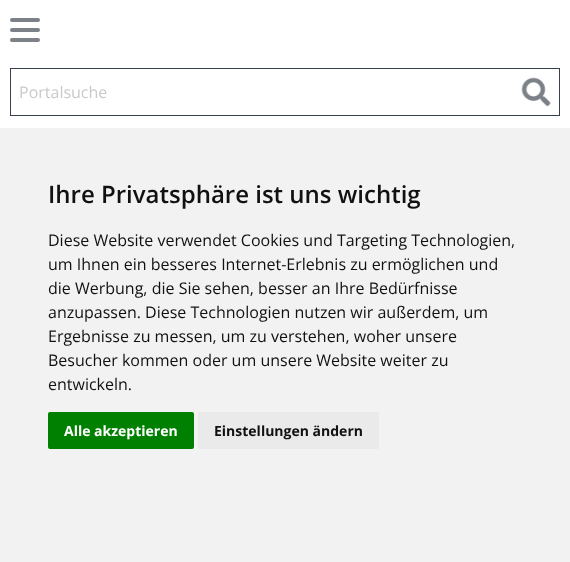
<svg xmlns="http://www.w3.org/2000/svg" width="570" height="562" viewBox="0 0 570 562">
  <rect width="100%" height="100%" fill="rgb(255,255,255)"/>
  <rect x="10" y="18" width="30" height="4" rx="2" fill="rgb(124,128,135)"/>
  <rect x="10" y="28" width="30" height="4" rx="2" fill="rgb(124,128,135)"/>
  <rect x="10" y="38" width="30" height="4" rx="2" fill="rgb(124,128,135)"/>
  <rect x="10" y="68" width="550" height="1" fill="rgb(55,64,75)"/>
  <rect x="10" y="115" width="502" height="1" fill="rgb(55,64,75)"/>
  <rect x="10" y="68" width="1" height="48" fill="rgb(55,64,75)"/>
  <text x="19" y="98" font-family="Open Sans" font-size="16" fill="rgb(202,202,202)">Portalsuche</text>
  <image x="521" y="77" width="30" height="30" href="pic1.png"/>
  <rect x="559" y="68" width="1" height="48" fill="rgb(55,64,75)"/>
  <rect x="512" y="115" width="48" height="1" fill="rgb(55,64,75)"/>
  <rect x="0" y="128" width="570" height="434" fill="rgb(242,242,242)"/>
  <text x="48" y="203" font-family="Open Sans" font-size="24" font-weight="600" fill="rgb(17,17,17)">Ihre Privatsphäre ist uns wichtig</text>
  <g font-family="Open Sans" font-size="16" fill="rgb(17,17,17)">
    <text>
      <tspan x="48" y="246">Diese Website verwendet Cookies und Targeting Technologien,</tspan>
      <tspan x="48" y="270">um Ihnen ein besseres Internet-Erlebnis zu ermöglichen und</tspan>
      <tspan x="48" y="294">die Werbung, die Sie sehen, besser an Ihre Bedürfnisse</tspan>
      <tspan x="48" y="318">anzupassen. Diese Technologien nutzen wir außerdem, um</tspan>
      <tspan x="48" y="342">Ergebnisse zu messen, um zu verstehen, woher unsere</tspan>
      <tspan x="48" y="366">Besucher kommen oder um unsere Website weiter zu</tspan>
      <tspan x="48" y="390">entwickeln.</tspan>
    </text>
  </g>
  <rect x="48" y="412" width="146" height="37" rx="2" fill="rgb(0,128,0)"/>
  <text x="64" y="436" font-family="Open Sans" font-size="14" font-weight="bold" fill="rgb(255,255,255)">Alle akzeptieren</text>
  <rect x="198" y="412" width="181" height="37" rx="2" fill="rgb(234,234,234)"/>
  <text x="214" y="436" font-family="Open Sans" font-size="14" font-weight="bold" fill="rgb(17,17,17)">Einstellungen ändern</text>
</svg>
